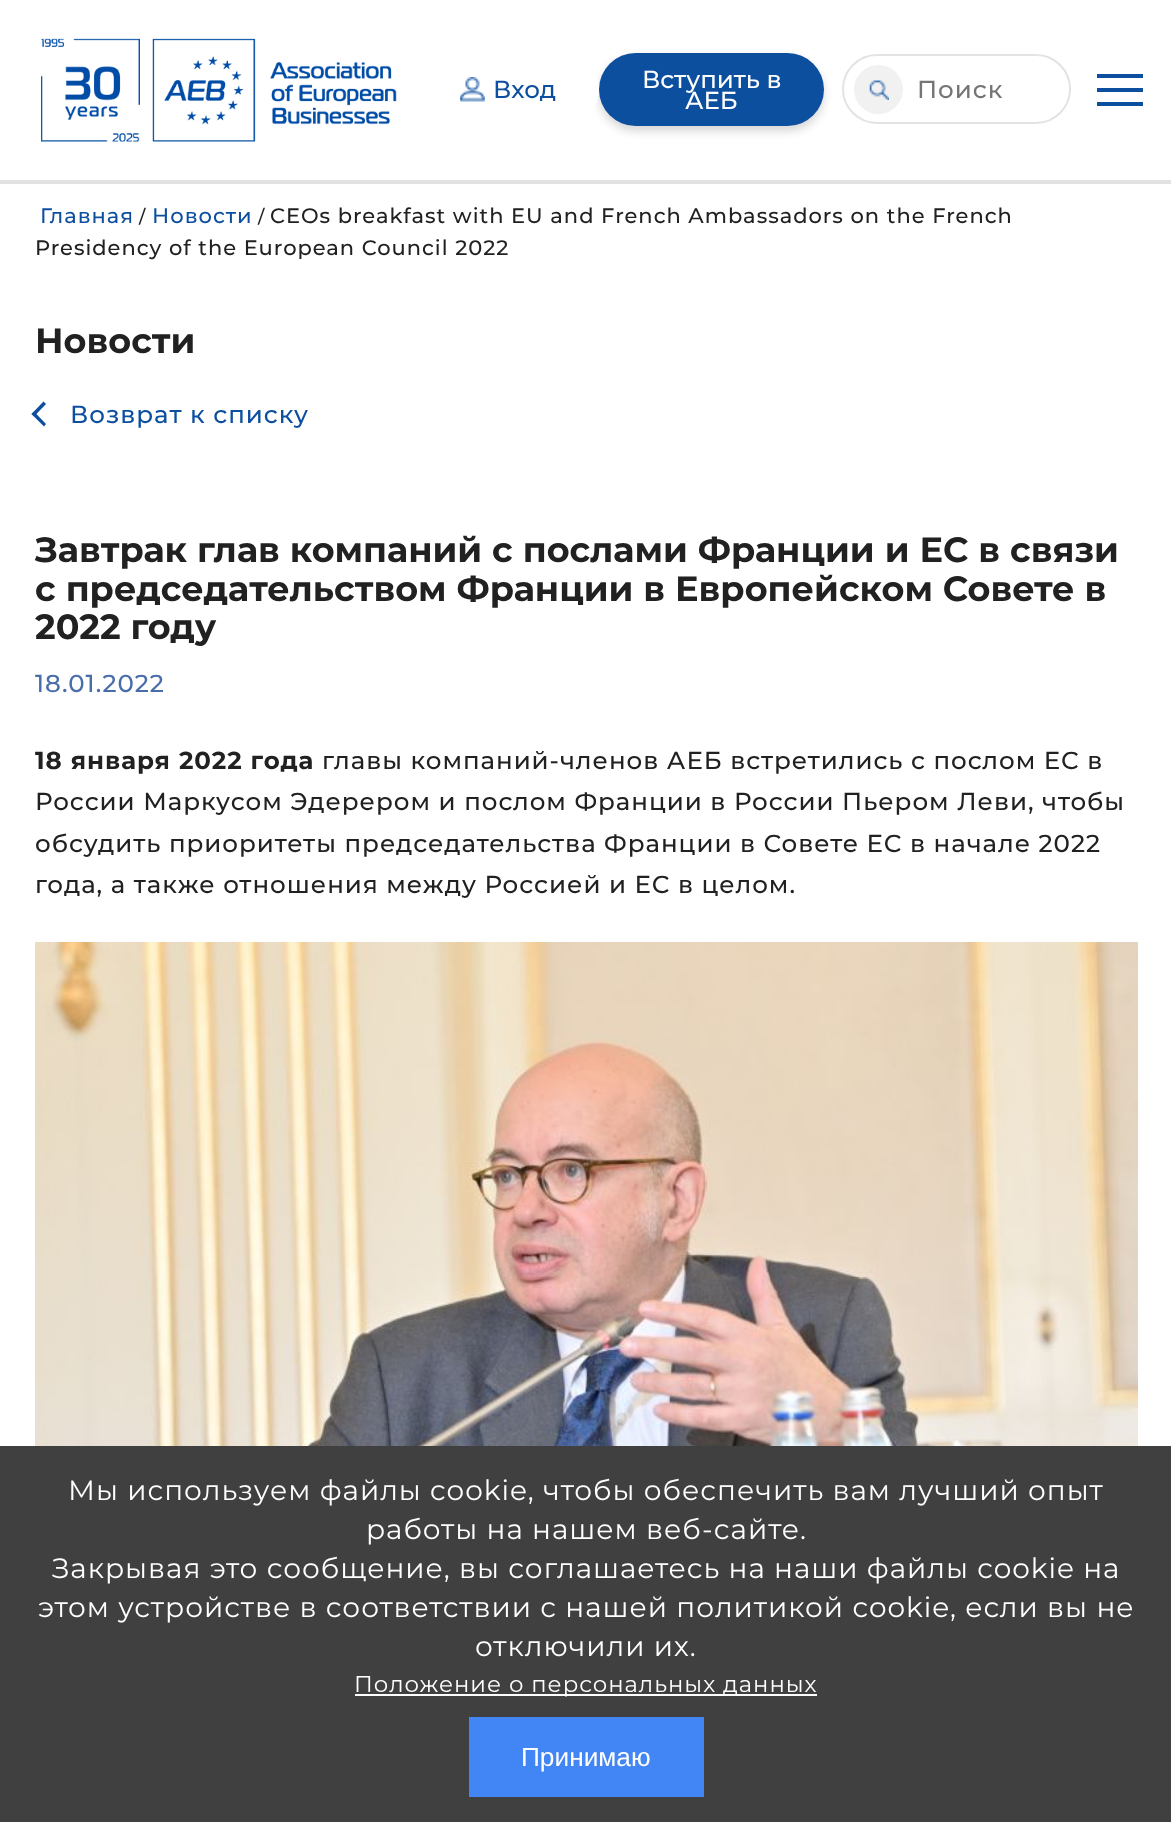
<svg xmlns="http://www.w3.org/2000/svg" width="1171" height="1822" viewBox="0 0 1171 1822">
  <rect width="100%" height="100%" fill="rgb(255,255,255)"/>
  <image x="41" y="38" width="356" height="104" href="pic1.png"/>
  <rect x="599" y="58" width="225" height="73" rx="36.5" fill="rgba(0,0,0,0.16)" filter="blur(5px)"/>
  <rect x="418" y="53" width="181" height="73" rx="36.5" fill="rgb(255,255,255)"/>
  <image x="460" y="77" width="25" height="25" href="pic2.png"/>
  <text x="493" y="98" font-family="Montserrat" font-size="24.5" font-weight="500" fill="rgb(13,79,159)">Вход</text>
  <rect x="599" y="53" width="225" height="73" rx="36.5" fill="rgb(13,79,159)"/>
  <g font-family="Montserrat" font-size="24.5" font-weight="500" fill="rgb(255,255,255)">
    <text x="642" y="88">Вступить в</text>
    <text x="685" y="109">АЕБ</text>
  </g>
  <rect x="843" y="55" width="227" height="68" rx="34" fill="none" stroke="rgb(227,227,227)" stroke-width="2"/>
  <circle cx="878.5" cy="89.5" r="24.5" fill="rgb(241,241,241)"/>
  <image x="869" y="80" width="20" height="20" href="pic3.png"/>
  <text x="917" y="98" font-family="Montserrat" font-size="24.5" font-weight="500" letter-spacing="0.98" fill="rgb(117,117,117)">Поиск</text>
  <rect x="1097" y="74" width="46" height="4" fill="rgb(13,79,159)"/>
  <rect x="1097" y="88" width="46" height="4" fill="rgb(13,79,159)"/>
  <rect x="1097" y="102" width="46" height="4" fill="rgb(13,79,159)"/>
  <rect x="0" y="180" width="1171" height="4" fill="rgb(226,226,226)"/>
  <text x="40" y="223" font-family="Montserrat" font-size="21" font-weight="500" letter-spacing="0.98" fill="rgb(13,79,159)">Главная</text>
  <text x="139" y="223" font-family="Montserrat" font-size="18" font-weight="500" letter-spacing="0.98" fill="rgb(33,33,33)">/</text>
  <text x="152" y="223" font-family="Montserrat" font-size="21" font-weight="500" letter-spacing="0.98" fill="rgb(13,79,159)">Новости</text>
  <text x="258" y="223" font-family="Montserrat" font-size="18" font-weight="500" letter-spacing="0.98" fill="rgb(33,33,33)">/</text>
  <g font-family="Montserrat" font-size="21" font-weight="500" letter-spacing="0.98" fill="rgb(33,33,33)">
    <text x="270" y="223">CEOs breakfast with EU and French Ambassadors on the French</text>
    <text x="35" y="255">Presidency of the European Council 2022</text>
  </g>
  <text x="35" y="353" font-family="Montserrat" font-size="35" font-weight="bold" fill="rgb(33,33,33)">Новости</text>
  <path d="M46 424L44 426.5L31.5 414L34 411.5Z" fill="rgb(13,79,159)"/>
  <path d="M46 404L34 416.5L31.5 414L43.5 401.5Z" fill="rgb(13,79,159)"/>
  <text x="70" y="423" font-family="Montserrat" font-size="24.5" font-weight="500" letter-spacing="0.98" fill="rgb(13,79,159)">Возврат к списку</text>
  <g font-family="Montserrat" font-size="35" font-weight="bold" fill="rgb(33,33,33)">
    <text>
      <tspan x="35" y="562">Завтрак глав компаний с послами Франции и ЕС в связи</tspan>
      <tspan x="35" y="601">с председательством Франции в Европейском Совете в</tspan>
      <tspan x="35" y="639">2022 году</tspan>
    </text>
  </g>
  <text x="35" y="692" font-family="Montserrat" font-size="24.5" font-weight="500" letter-spacing="0.98" fill="rgb(72,109,170)">18.01.2022</text>
  <text x="35" y="769" font-family="Montserrat" font-size="24.5" font-weight="bold" letter-spacing="0.98" fill="rgb(33,33,33)">18 января 2022 года</text>
  <g font-family="Montserrat" font-size="24.5" font-weight="500" letter-spacing="0.98" fill="rgb(33,33,33)">
    <text x="322" y="769">главы компаний-членов АЕБ встретились с послом ЕС в</text>
    <text>
      <tspan x="35" y="810">России Маркусом Эдерером и послом Франции в России Пьером Леви, чтобы</tspan>
      <tspan x="35" y="852">обсудить приоритеты председательства Франции в Совете ЕС в начале 2022</tspan>
      <tspan x="35" y="893">года, а также отношения между Россией и ЕС в целом.</tspan>
    </text>
  </g>
  <image x="35" y="942" width="1103" height="504" href="pic4.png"/>
  <rect x="0" y="1446" width="1171" height="376" fill="rgb(64,64,64)"/>
  <g font-family="Montserrat" font-size="28" letter-spacing="0.98" fill="rgb(255,255,255)">
    <text x="68" y="1500">Мы используем файлы cookie, чтобы обеспечить вам лучший опыт</text>
    <text x="366" y="1539">работы на нашем веб-сайте.</text>
    <text x="52" y="1578">Закрывая это сообщение, вы соглашаетесь на наши файлы cookie на</text>
    <text x="38" y="1617">этом устройстве в соответствии с нашей политикой cookie, если вы не</text>
    <text x="475" y="1656">отключили их.</text>
  </g>
  <rect x="355" y="1694" width="462" height="2" fill="rgb(255,255,255)"/>
  <text x="354" y="1692" font-family="Montserrat" font-size="22.75" letter-spacing="0.98" fill="rgb(255,255,255)">Положение о персональных данных</text>
  <rect x="469" y="1717" width="235" height="80" fill="rgb(66,133,244)"/>
  <text x="521" y="1766" font-family="Liberation Sans" font-size="26.25" fill="rgb(255,255,255)">Принимаю</text>
</svg>
